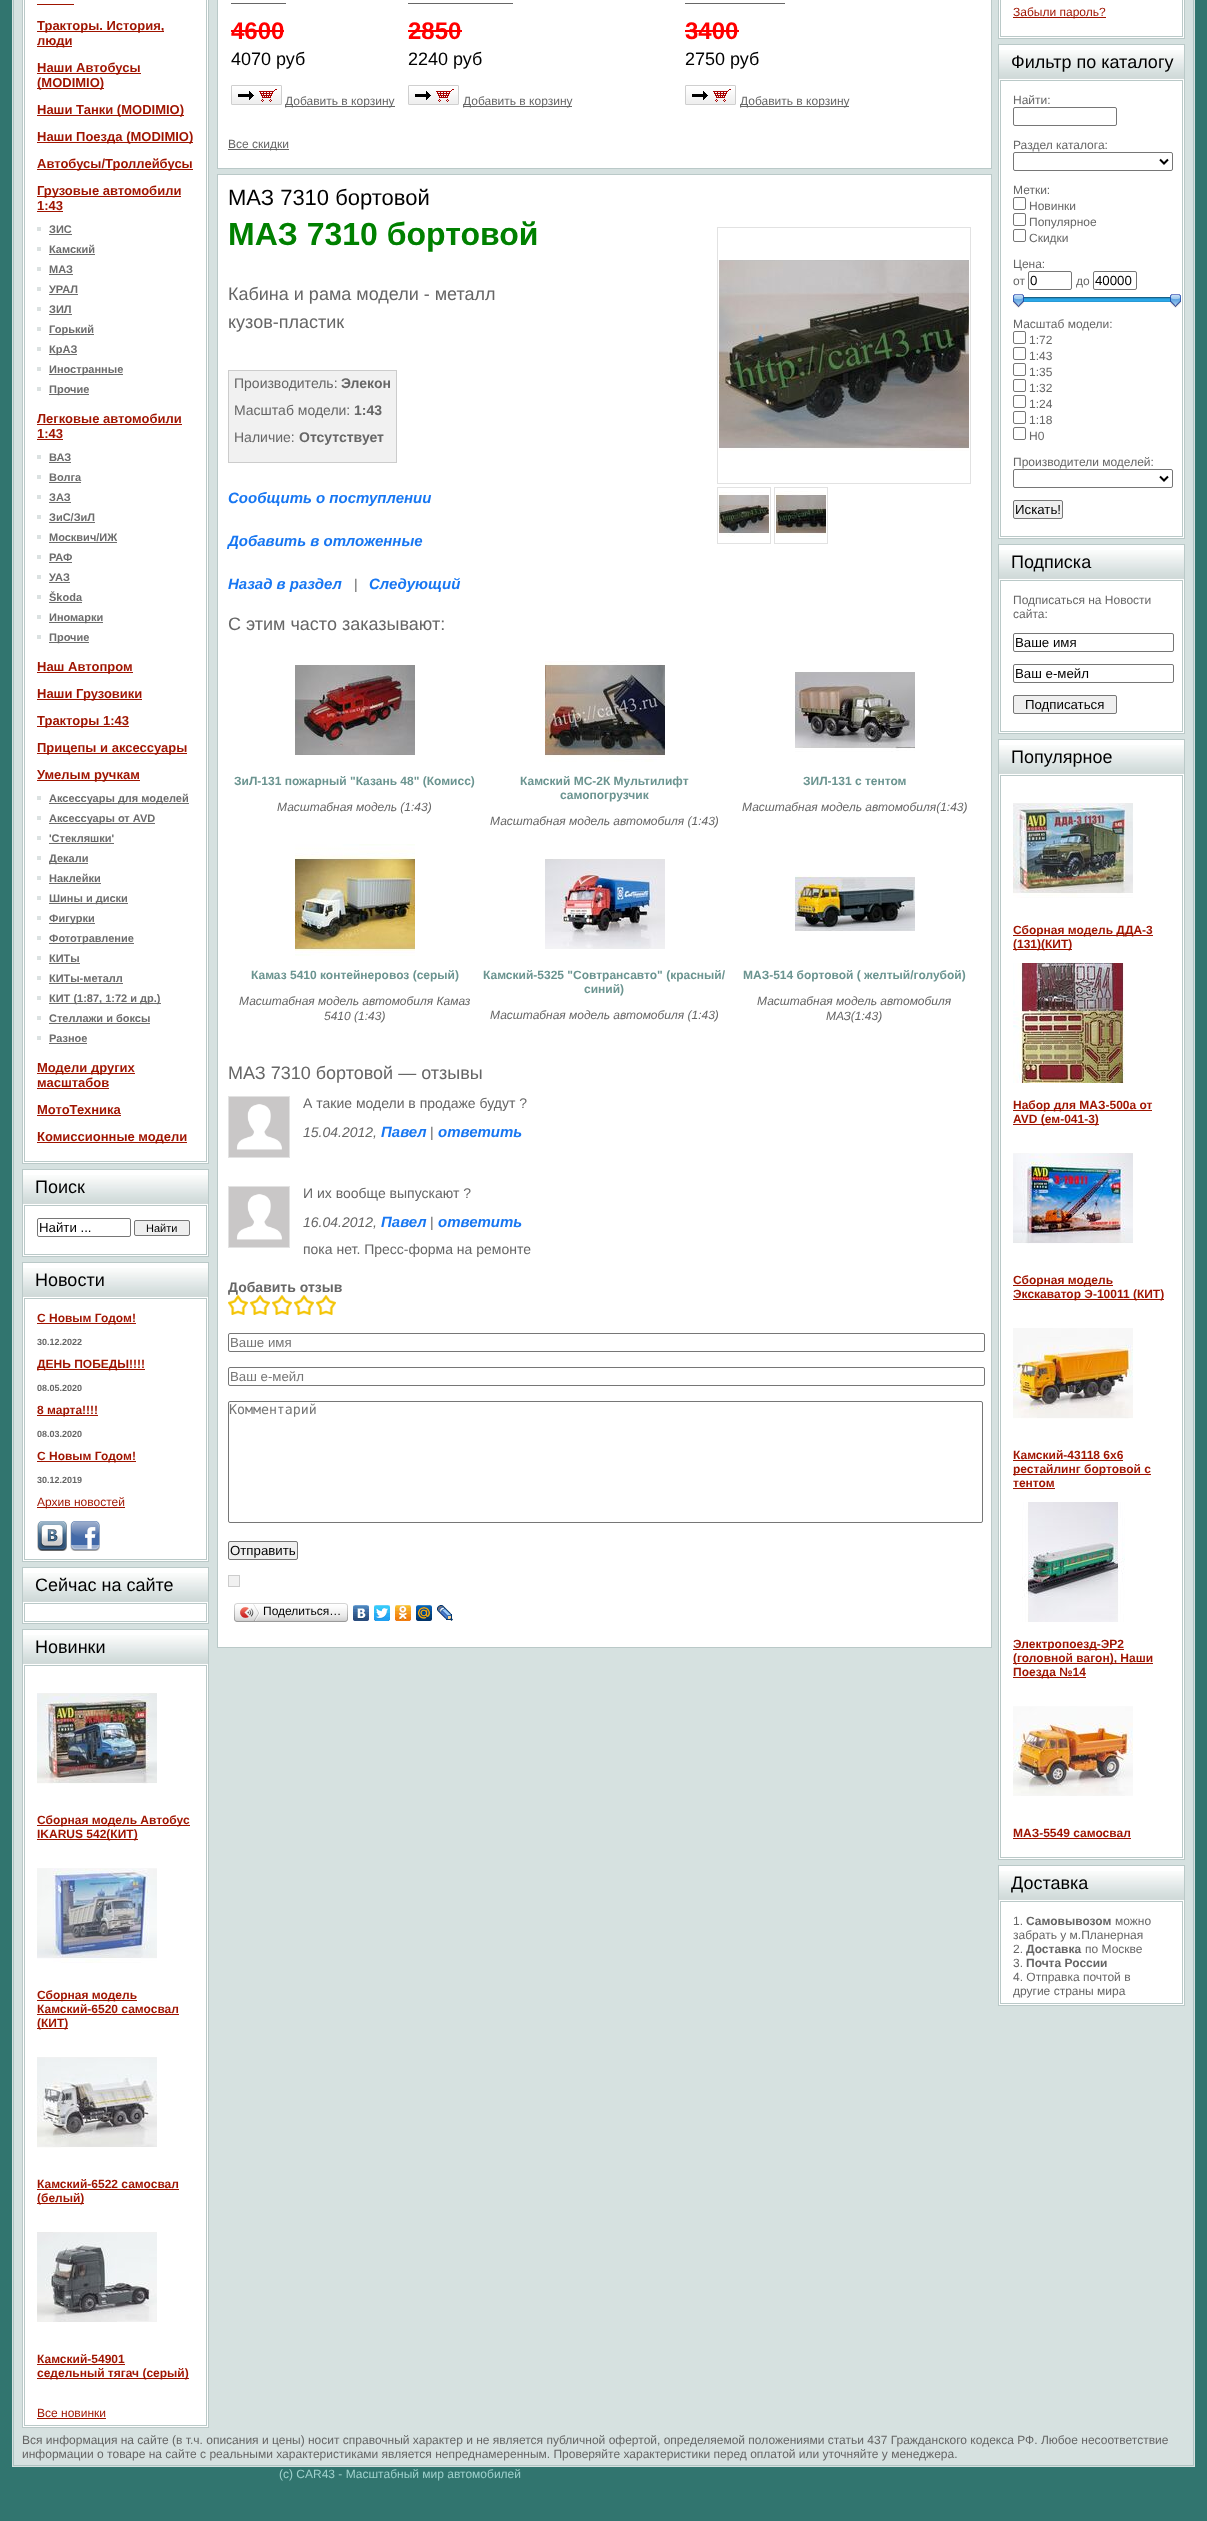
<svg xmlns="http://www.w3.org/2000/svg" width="1207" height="2521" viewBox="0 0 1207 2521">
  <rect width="100%" height="100%" fill="rgb(49,117,111)"/>
  <rect x="12.5" y="-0.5" width="1182" height="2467" fill="none" stroke="rgb(214,225,224)"/>
  <rect x="13.5" y="-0.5" width="1180" height="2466" fill="rgb(214,225,224)" stroke="rgb(175,196,194)"/>
  <rect x="22.5" y="-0.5" width="186" height="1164" fill="rgb(255,255,255)" stroke="rgb(186,201,200)"/>
  <rect x="24.5" y="-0.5" width="182" height="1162" fill="none" stroke="rgb(186,201,200)"/>
  <rect x="37" y="4" width="37" height="1" fill="rgb(159,20,0)"/>
  <rect x="37" y="31" width="127" height="1" fill="rgb(159,20,0)"/>
  <text x="37" y="30" font-family="Liberation Sans" font-size="13" font-weight="bold" fill="rgb(159,20,0)">Тракторы. История,</text>
  <rect x="37" y="46" width="35" height="1" fill="rgb(159,20,0)"/>
  <text x="37" y="45" font-family="Liberation Sans" font-size="13" font-weight="bold" fill="rgb(159,20,0)">люди</text>
  <rect x="37" y="73" width="104" height="1" fill="rgb(159,20,0)"/>
  <text x="37" y="72" font-family="Liberation Sans" font-size="13" font-weight="bold" fill="rgb(159,20,0)">Наши Автобусы</text>
  <rect x="37" y="88" width="67" height="1" fill="rgb(159,20,0)"/>
  <text x="37" y="87" font-family="Liberation Sans" font-size="13" font-weight="bold" fill="rgb(159,20,0)">(MODIMIO)</text>
  <rect x="37" y="115" width="147" height="1" fill="rgb(159,20,0)"/>
  <text x="37" y="114" font-family="Liberation Sans" font-size="13" font-weight="bold" fill="rgb(159,20,0)">Наши Танки (MODIMIO)</text>
  <rect x="37" y="142" width="156" height="1" fill="rgb(159,20,0)"/>
  <text x="37" y="141" font-family="Liberation Sans" font-size="13" font-weight="bold" fill="rgb(159,20,0)">Наши Поезда (MODIMIO)</text>
  <rect x="37" y="169" width="156" height="1" fill="rgb(159,20,0)"/>
  <text x="37" y="168" font-family="Liberation Sans" font-size="13" font-weight="bold" fill="rgb(159,20,0)">Автобусы/Троллейбусы</text>
  <rect x="37" y="196" width="144" height="1" fill="rgb(159,20,0)"/>
  <g font-family="Liberation Sans" font-size="13" font-weight="bold" fill="rgb(159,20,0)">
    <text>
      <tspan x="37" y="195">Грузовые автомобили</tspan>
      <tspan x="37" y="210">1:43</tspan>
    </text>
  </g>
  <rect x="37" y="211" width="26" height="1" fill="rgb(159,20,0)"/>
  <rect x="37" y="227" width="4" height="4" fill="rgb(219,225,225)"/>
  <text x="49" y="233" font-family="Liberation Sans" font-size="11" font-weight="bold" fill="rgb(108,108,108)">ЗИС</text>
  <rect x="49" y="234" width="23" height="1" fill="rgb(108,108,108)"/>
  <rect x="37" y="247" width="4" height="4" fill="rgb(219,225,225)"/>
  <text x="49" y="253" font-family="Liberation Sans" font-size="11" font-weight="bold" fill="rgb(108,108,108)">Камский</text>
  <rect x="49" y="254" width="46" height="1" fill="rgb(108,108,108)"/>
  <rect x="37" y="267" width="4" height="4" fill="rgb(219,225,225)"/>
  <text x="49" y="273" font-family="Liberation Sans" font-size="11" font-weight="bold" fill="rgb(108,108,108)">МАЗ</text>
  <rect x="49" y="274" width="24" height="1" fill="rgb(108,108,108)"/>
  <rect x="37" y="287" width="4" height="4" fill="rgb(219,225,225)"/>
  <text x="49" y="293" font-family="Liberation Sans" font-size="11" font-weight="bold" fill="rgb(108,108,108)">УРАЛ</text>
  <rect x="49" y="294" width="29" height="1" fill="rgb(108,108,108)"/>
  <rect x="37" y="307" width="4" height="4" fill="rgb(219,225,225)"/>
  <text x="49" y="313" font-family="Liberation Sans" font-size="11" font-weight="bold" fill="rgb(108,108,108)">ЗИЛ</text>
  <rect x="49" y="314" width="23" height="1" fill="rgb(108,108,108)"/>
  <rect x="37" y="327" width="4" height="4" fill="rgb(219,225,225)"/>
  <rect x="49" y="334" width="45" height="1" fill="rgb(108,108,108)"/>
  <text x="49" y="333" font-family="Liberation Sans" font-size="11" font-weight="bold" fill="rgb(108,108,108)">Горький</text>
  <rect x="37" y="347" width="4" height="4" fill="rgb(219,225,225)"/>
  <rect x="49" y="354" width="28" height="1" fill="rgb(108,108,108)"/>
  <text x="49" y="353" font-family="Liberation Sans" font-size="11" font-weight="bold" fill="rgb(108,108,108)">КрАЗ</text>
  <rect x="37" y="367" width="4" height="4" fill="rgb(219,225,225)"/>
  <rect x="49" y="374" width="74" height="1" fill="rgb(108,108,108)"/>
  <text x="49" y="373" font-family="Liberation Sans" font-size="11" font-weight="bold" fill="rgb(108,108,108)">Иностранные</text>
  <rect x="37" y="387" width="4" height="4" fill="rgb(219,225,225)"/>
  <rect x="49" y="394" width="40" height="1" fill="rgb(108,108,108)"/>
  <text x="49" y="393" font-family="Liberation Sans" font-size="11" font-weight="bold" fill="rgb(108,108,108)">Прочие</text>
  <text x="37" y="423" font-family="Liberation Sans" font-size="13" font-weight="bold" fill="rgb(159,20,0)">Легковые автомобили</text>
  <rect x="37" y="424" width="145" height="1" fill="rgb(159,20,0)"/>
  <text x="37" y="438" font-family="Liberation Sans" font-size="13" font-weight="bold" fill="rgb(159,20,0)">1:43</text>
  <rect x="37" y="439" width="26" height="1" fill="rgb(159,20,0)"/>
  <rect x="37" y="455" width="4" height="4" fill="rgb(219,225,225)"/>
  <text x="49" y="461" font-family="Liberation Sans" font-size="11" font-weight="bold" fill="rgb(108,108,108)">ВАЗ</text>
  <rect x="49" y="462" width="22" height="1" fill="rgb(108,108,108)"/>
  <rect x="37" y="475" width="4" height="4" fill="rgb(219,225,225)"/>
  <text x="49" y="481" font-family="Liberation Sans" font-size="11" font-weight="bold" fill="rgb(108,108,108)">Волга</text>
  <rect x="49" y="482" width="32" height="1" fill="rgb(108,108,108)"/>
  <rect x="37" y="495" width="4" height="4" fill="rgb(219,225,225)"/>
  <text x="49" y="501" font-family="Liberation Sans" font-size="11" font-weight="bold" fill="rgb(108,108,108)">ЗАЗ</text>
  <rect x="49" y="502" width="22" height="1" fill="rgb(108,108,108)"/>
  <rect x="37" y="515" width="4" height="4" fill="rgb(219,225,225)"/>
  <text x="49" y="521" font-family="Liberation Sans" font-size="11" font-weight="bold" fill="rgb(108,108,108)">ЗиС/ЗиЛ</text>
  <rect x="49" y="522" width="46" height="1" fill="rgb(108,108,108)"/>
  <rect x="37" y="535" width="4" height="4" fill="rgb(219,225,225)"/>
  <text x="49" y="541" font-family="Liberation Sans" font-size="11" font-weight="bold" fill="rgb(108,108,108)">Москвич/ИЖ</text>
  <rect x="49" y="542" width="68" height="1" fill="rgb(108,108,108)"/>
  <rect x="37" y="555" width="4" height="4" fill="rgb(219,225,225)"/>
  <text x="49" y="561" font-family="Liberation Sans" font-size="11" font-weight="bold" fill="rgb(108,108,108)">РАФ</text>
  <rect x="49" y="562" width="23" height="1" fill="rgb(108,108,108)"/>
  <rect x="37" y="575" width="4" height="4" fill="rgb(219,225,225)"/>
  <text x="49" y="581" font-family="Liberation Sans" font-size="11" font-weight="bold" fill="rgb(108,108,108)">УАЗ</text>
  <rect x="49" y="582" width="21" height="1" fill="rgb(108,108,108)"/>
  <rect x="37" y="595" width="4" height="4" fill="rgb(219,225,225)"/>
  <text x="49" y="601" font-family="Liberation Sans" font-size="11" font-weight="bold" fill="rgb(108,108,108)">Škoda</text>
  <rect x="49" y="602" width="33" height="1" fill="rgb(108,108,108)"/>
  <rect x="37" y="615" width="4" height="4" fill="rgb(219,225,225)"/>
  <rect x="49" y="622" width="54" height="1" fill="rgb(108,108,108)"/>
  <text x="49" y="621" font-family="Liberation Sans" font-size="11" font-weight="bold" fill="rgb(108,108,108)">Иномарки</text>
  <rect x="37" y="635" width="4" height="4" fill="rgb(219,225,225)"/>
  <rect x="49" y="642" width="40" height="1" fill="rgb(108,108,108)"/>
  <text x="49" y="641" font-family="Liberation Sans" font-size="11" font-weight="bold" fill="rgb(108,108,108)">Прочие</text>
  <rect x="37" y="672" width="96" height="1" fill="rgb(159,20,0)"/>
  <text x="37" y="671" font-family="Liberation Sans" font-size="13" font-weight="bold" fill="rgb(159,20,0)">Наш Aвтопром</text>
  <rect x="37" y="699" width="105" height="1" fill="rgb(159,20,0)"/>
  <text x="37" y="698" font-family="Liberation Sans" font-size="13" font-weight="bold" fill="rgb(159,20,0)">Наши Грузовики</text>
  <rect x="37" y="726" width="92" height="1" fill="rgb(159,20,0)"/>
  <text x="37" y="725" font-family="Liberation Sans" font-size="13" font-weight="bold" fill="rgb(159,20,0)">Тракторы 1:43</text>
  <rect x="37" y="753" width="150" height="1" fill="rgb(159,20,0)"/>
  <text x="37" y="752" font-family="Liberation Sans" font-size="13" font-weight="bold" fill="rgb(159,20,0)">Прицепы и аксессуары</text>
  <rect x="37" y="780" width="103" height="1" fill="rgb(159,20,0)"/>
  <text x="37" y="779" font-family="Liberation Sans" font-size="13" font-weight="bold" fill="rgb(159,20,0)">Умелым ручкам</text>
  <rect x="37" y="796" width="4" height="4" fill="rgb(219,225,225)"/>
  <rect x="49" y="803" width="140" height="1" fill="rgb(108,108,108)"/>
  <text x="49" y="802" font-family="Liberation Sans" font-size="11" font-weight="bold" fill="rgb(108,108,108)">Аксессуары для моделей</text>
  <rect x="37" y="816" width="4" height="4" fill="rgb(219,225,225)"/>
  <rect x="49" y="823" width="106" height="1" fill="rgb(108,108,108)"/>
  <text x="49" y="822" font-family="Liberation Sans" font-size="11" font-weight="bold" fill="rgb(108,108,108)">Аксессуары от AVD</text>
  <rect x="37" y="836" width="4" height="4" fill="rgb(219,225,225)"/>
  <text x="49" y="842" font-family="Liberation Sans" font-size="11" font-weight="bold" fill="rgb(108,108,108)">'Стекляшки'</text>
  <rect x="49" y="843" width="65" height="1" fill="rgb(108,108,108)"/>
  <rect x="37" y="856" width="4" height="4" fill="rgb(219,225,225)"/>
  <rect x="49" y="863" width="39" height="1" fill="rgb(108,108,108)"/>
  <text x="49" y="862" font-family="Liberation Sans" font-size="11" font-weight="bold" fill="rgb(108,108,108)">Декали</text>
  <rect x="37" y="876" width="4" height="4" fill="rgb(219,225,225)"/>
  <text x="49" y="882" font-family="Liberation Sans" font-size="11" font-weight="bold" fill="rgb(108,108,108)">Наклейки</text>
  <rect x="49" y="883" width="52" height="1" fill="rgb(108,108,108)"/>
  <rect x="37" y="896" width="4" height="4" fill="rgb(219,225,225)"/>
  <rect x="49" y="903" width="79" height="1" fill="rgb(108,108,108)"/>
  <text x="49" y="902" font-family="Liberation Sans" font-size="11" font-weight="bold" fill="rgb(108,108,108)">Шины и диски</text>
  <rect x="37" y="916" width="4" height="4" fill="rgb(219,225,225)"/>
  <rect x="49" y="923" width="46" height="1" fill="rgb(108,108,108)"/>
  <text x="49" y="922" font-family="Liberation Sans" font-size="11" font-weight="bold" fill="rgb(108,108,108)">Фигурки</text>
  <rect x="37" y="936" width="4" height="4" fill="rgb(219,225,225)"/>
  <rect x="49" y="943" width="85" height="1" fill="rgb(108,108,108)"/>
  <text x="49" y="942" font-family="Liberation Sans" font-size="11" font-weight="bold" fill="rgb(108,108,108)">Фототравление</text>
  <rect x="37" y="956" width="4" height="4" fill="rgb(219,225,225)"/>
  <text x="49" y="962" font-family="Liberation Sans" font-size="11" font-weight="bold" fill="rgb(108,108,108)">КИТы</text>
  <rect x="49" y="963" width="31" height="1" fill="rgb(108,108,108)"/>
  <rect x="37" y="976" width="4" height="4" fill="rgb(219,225,225)"/>
  <text x="49" y="982" font-family="Liberation Sans" font-size="11" font-weight="bold" fill="rgb(108,108,108)">КИТы-металл</text>
  <rect x="49" y="983" width="74" height="1" fill="rgb(108,108,108)"/>
  <rect x="37" y="996" width="4" height="4" fill="rgb(219,225,225)"/>
  <rect x="49" y="1003" width="112" height="1" fill="rgb(108,108,108)"/>
  <text x="49" y="1002" font-family="Liberation Sans" font-size="11" font-weight="bold" fill="rgb(108,108,108)">КИТ (1:87, 1:72 и др.)</text>
  <rect x="37" y="1016" width="4" height="4" fill="rgb(219,225,225)"/>
  <text x="49" y="1022" font-family="Liberation Sans" font-size="11" font-weight="bold" fill="rgb(108,108,108)">Стеллажи и боксы</text>
  <rect x="49" y="1023" width="101" height="1" fill="rgb(108,108,108)"/>
  <rect x="37" y="1036" width="4" height="4" fill="rgb(219,225,225)"/>
  <text x="49" y="1042" font-family="Liberation Sans" font-size="11" font-weight="bold" fill="rgb(108,108,108)">Разное</text>
  <rect x="49" y="1043" width="38" height="1" fill="rgb(108,108,108)"/>
  <rect x="37" y="1073" width="98" height="1" fill="rgb(159,20,0)"/>
  <g font-family="Liberation Sans" font-size="13" font-weight="bold" fill="rgb(159,20,0)">
    <text>
      <tspan x="37" y="1072">Модели других</tspan>
      <tspan x="37" y="1087">масштабов</tspan>
    </text>
  </g>
  <rect x="37" y="1088" width="72" height="1" fill="rgb(159,20,0)"/>
  <text x="37" y="1114" font-family="Liberation Sans" font-size="13" font-weight="bold" fill="rgb(159,20,0)">МотоТехника</text>
  <rect x="37" y="1115" width="84" height="1" fill="rgb(159,20,0)"/>
  <rect x="37" y="1142" width="150" height="1" fill="rgb(159,20,0)"/>
  <text x="37" y="1141" font-family="Liberation Sans" font-size="13" font-weight="bold" fill="rgb(159,20,0)">Комиссионные модели</text>
  <rect x="22.5" y="1169.5" width="186" height="87" fill="rgb(255,255,255)" stroke="rgb(186,201,200)"/>
  <image x="23" y="1175" width="185" height="29" href="pic1.png"/>
  <text x="35" y="1193" font-family="Liberation Sans" font-size="18" fill="rgb(0,0,0)">Поиск</text>
  <rect x="24.5" y="1205.5" width="182" height="49" fill="none" stroke="rgb(186,201,200)"/>
  <rect x="37.5" y="1218.5" width="93" height="18" rx="1.5" fill="none" stroke="rgb(118,118,118)"/>
  <text x="39" y="1232" font-family="Liberation Sans" font-size="13.25" fill="rgb(0,0,0)">Найти ...</text>
  <rect x="134.5" y="1220.5" width="55" height="15" rx="1.5" fill="rgb(239,239,239)" stroke="rgb(118,118,118)"/>
  <text x="146" y="1232" font-family="Liberation Sans" font-size="11" fill="rgb(0,0,0)">Найти</text>
  <rect x="22.5" y="1262.5" width="186" height="299" fill="rgb(255,255,255)" stroke="rgb(186,201,200)"/>
  <image x="23" y="1268" width="185" height="29" href="pic1.png"/>
  <text x="35" y="1286" font-family="Liberation Sans" font-size="18" fill="rgb(0,0,0)">Новости</text>
  <rect x="24.5" y="1298.5" width="182" height="261" fill="none" stroke="rgb(186,201,200)"/>
  <rect x="37" y="1323" width="99" height="1" fill="rgb(159,20,0)"/>
  <text x="37" y="1322" font-family="Liberation Sans" font-size="12" font-weight="bold" fill="rgb(159,20,0)">С Новым Годом!</text>
  <text x="37" y="1345" font-family="Liberation Sans" font-size="9" font-weight="bold" fill="rgb(102,102,102)">30.12.2022</text>
  <rect x="37" y="1369" width="108" height="1" fill="rgb(159,20,0)"/>
  <text x="37" y="1368" font-family="Liberation Sans" font-size="12" font-weight="bold" fill="rgb(159,20,0)">ДЕНЬ ПОБЕДЫ!!!!</text>
  <text x="37" y="1391" font-family="Liberation Sans" font-size="9" font-weight="bold" fill="rgb(102,102,102)">08.05.2020</text>
  <rect x="37" y="1415" width="61" height="1" fill="rgb(159,20,0)"/>
  <text x="37" y="1414" font-family="Liberation Sans" font-size="12" font-weight="bold" fill="rgb(159,20,0)">8 марта!!!!</text>
  <text x="37" y="1437" font-family="Liberation Sans" font-size="9" font-weight="bold" fill="rgb(102,102,102)">08.03.2020</text>
  <rect x="37" y="1461" width="99" height="1" fill="rgb(159,20,0)"/>
  <text x="37" y="1460" font-family="Liberation Sans" font-size="12" font-weight="bold" fill="rgb(159,20,0)">С Новым Годом!</text>
  <text x="37" y="1483" font-family="Liberation Sans" font-size="9" font-weight="bold" fill="rgb(102,102,102)">30.12.2019</text>
  <rect x="37" y="1507" width="88" height="1" fill="rgb(159,20,0)"/>
  <text x="37" y="1506" font-family="Liberation Sans" font-size="12" fill="rgb(159,20,0)">Архив новостей</text>
  <image x="37" y="1521" width="30" height="30" href="pic2.png"/>
  <image x="70" y="1521" width="30" height="30" href="pic3.png"/>
  <rect x="22.5" y="1567.5" width="186" height="56" fill="rgb(255,255,255)" stroke="rgb(186,201,200)"/>
  <image x="23" y="1573" width="185" height="29" href="pic1.png"/>
  <text x="35" y="1591" font-family="Liberation Sans" font-size="18" fill="rgb(0,0,0)">Сейчас на сайте</text>
  <rect x="24.5" y="1603.5" width="182" height="18" fill="none" stroke="rgb(186,201,200)"/>
  <rect x="22.5" y="1629.5" width="186" height="798" fill="rgb(255,255,255)" stroke="rgb(186,201,200)"/>
  <image x="23" y="1635" width="185" height="29" href="pic1.png"/>
  <text x="35" y="1653" font-family="Liberation Sans" font-size="18" fill="rgb(0,0,0)">Новинки</text>
  <rect x="24.5" y="1665.5" width="182" height="760" fill="none" stroke="rgb(186,201,200)"/>
  <image x="37" y="1693" width="120" height="91" href="pic4.png"/>
  <rect x="37" y="1825" width="153" height="1" fill="rgb(159,20,0)"/>
  <text x="37" y="1824" font-family="Liberation Sans" font-size="12" font-weight="bold" fill="rgb(159,20,0)">Сборная модель Автобус</text>
  <rect x="37" y="1839" width="101" height="1" fill="rgb(159,20,0)"/>
  <text x="37" y="1838" font-family="Liberation Sans" font-size="12" font-weight="bold" fill="rgb(159,20,0)">IKARUS 542(КИТ)</text>
  <image x="37" y="1868" width="120" height="95" href="pic5.png"/>
  <rect x="37" y="2000" width="100" height="1" fill="rgb(159,20,0)"/>
  <g font-family="Liberation Sans" font-size="12" font-weight="bold" fill="rgb(159,20,0)">
    <text>
      <tspan x="37" y="1999">Сборная модель</tspan>
      <tspan x="37" y="2013">Камский-6520 самосвал</tspan>
    </text>
  </g>
  <rect x="37" y="2014" width="142" height="1" fill="rgb(159,20,0)"/>
  <rect x="37" y="2028" width="31" height="1" fill="rgb(159,20,0)"/>
  <text x="37" y="2027" font-family="Liberation Sans" font-size="12" font-weight="bold" fill="rgb(159,20,0)">(КИТ)</text>
  <image x="37" y="2057" width="120" height="91" href="pic6.png"/>
  <text x="37" y="2188" font-family="Liberation Sans" font-size="12" font-weight="bold" fill="rgb(159,20,0)">Камский-6522 самосвал</text>
  <rect x="37" y="2189" width="142" height="1" fill="rgb(159,20,0)"/>
  <rect x="37" y="2203" width="47" height="1" fill="rgb(159,20,0)"/>
  <text x="37" y="2202" font-family="Liberation Sans" font-size="12" font-weight="bold" fill="rgb(159,20,0)">(белый)</text>
  <image x="37" y="2232" width="120" height="90" href="pic7.png"/>
  <text x="37" y="2363" font-family="Liberation Sans" font-size="12" font-weight="bold" fill="rgb(159,20,0)">Камский-54901</text>
  <rect x="37" y="2364" width="88" height="1" fill="rgb(159,20,0)"/>
  <rect x="37" y="2378" width="152" height="1" fill="rgb(159,20,0)"/>
  <text x="37" y="2377" font-family="Liberation Sans" font-size="12" font-weight="bold" fill="rgb(159,20,0)">седельный тягач (серый)</text>
  <text x="37" y="2417" font-family="Liberation Sans" font-size="12" fill="rgb(159,20,0)">Все новинки</text>
  <rect x="37" y="2418" width="69" height="1" fill="rgb(159,20,0)"/>
  <rect x="217.5" y="-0.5" width="774" height="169" fill="rgb(255,255,255)" stroke="rgb(186,201,200)"/>
  <rect x="231" y="3" width="55" height="1" fill="rgb(102,102,102)"/>
  <text x="231" y="39" font-family="Liberation Sans" font-size="24" font-weight="bold" fill="rgb(255,0,0)">4600</text>
  <rect x="231" y="30" width="53" height="2" fill="rgb(255,0,0)"/>
  <text x="231" y="65" font-family="Liberation Sans" font-size="18" fill="rgb(0,0,0)">4070 руб</text>
  <image x="231" y="85" width="51" height="20" href="pic8.png"/>
  <rect x="285" y="106" width="110" height="1" fill="rgb(102,102,102)"/>
  <text x="285" y="105" font-family="Liberation Sans" font-size="12" fill="rgb(102,102,102)">Добавить в корзину</text>
  <rect x="408" y="3" width="105" height="1" fill="rgb(102,102,102)"/>
  <text x="408" y="39" font-family="Liberation Sans" font-size="24" font-weight="bold" fill="rgb(255,0,0)">2850</text>
  <rect x="408" y="30" width="54" height="2" fill="rgb(255,0,0)"/>
  <text x="408" y="65" font-family="Liberation Sans" font-size="18" fill="rgb(0,0,0)">2240 руб</text>
  <image x="408" y="85" width="51" height="20" href="pic8.png"/>
  <rect x="463" y="106" width="109" height="1" fill="rgb(102,102,102)"/>
  <text x="463" y="105" font-family="Liberation Sans" font-size="12" fill="rgb(102,102,102)">Добавить в корзину</text>
  <rect x="685" y="3" width="100" height="1" fill="rgb(102,102,102)"/>
  <text x="685" y="39" font-family="Liberation Sans" font-size="24" font-weight="bold" fill="rgb(255,0,0)">3400</text>
  <rect x="685" y="30" width="54" height="2" fill="rgb(255,0,0)"/>
  <text x="685" y="65" font-family="Liberation Sans" font-size="18" fill="rgb(0,0,0)">2750 руб</text>
  <image x="685" y="85" width="51" height="20" href="pic8.png"/>
  <rect x="740" y="106" width="109" height="1" fill="rgb(102,102,102)"/>
  <text x="740" y="105" font-family="Liberation Sans" font-size="12" fill="rgb(102,102,102)">Добавить в корзину</text>
  <rect x="228" y="149" width="61" height="1" fill="rgb(102,102,102)"/>
  <text x="228" y="148" font-family="Liberation Sans" font-size="12" fill="rgb(102,102,102)">Все скидки</text>
  <rect x="217.5" y="174.5" width="774" height="1473" fill="rgb(255,255,255)" stroke="rgb(186,201,200)"/>
  <text x="228" y="205" font-family="Liberation Sans" font-size="22" fill="rgb(0,0,0)">МАЗ 7310 бортовой</text>
  <text x="228" y="245" font-family="Liberation Sans" font-size="32" font-weight="bold" fill="rgb(0,128,0)">МАЗ 7310 бортовой</text>
  <g font-family="Liberation Sans" font-size="18" fill="rgb(102,102,102)">
    <text>
      <tspan x="228" y="300">Кабина и рама модели - металл</tspan>
      <tspan x="228" y="328">кузов-пластик</tspan>
    </text>
  </g>
  <rect x="717.5" y="227.5" width="253" height="256" fill="none" stroke="rgb(226,226,226)"/>
  <image x="719" y="260" width="250" height="191" href="pic9.png"/>
  <rect x="717.5" y="487.5" width="53" height="56" fill="none" stroke="rgb(226,226,226)"/>
  <image x="719" y="492" width="50" height="45" href="pic10.png"/>
  <rect x="774.5" y="487.5" width="53" height="56" fill="none" stroke="rgb(226,226,226)"/>
  <image x="776" y="491" width="50" height="46" href="pic11.png"/>
  <rect x="228.5" y="370.5" width="168" height="92" fill="rgb(241,241,241)" stroke="rgb(204,204,204)"/>
  <text x="234" y="388" font-family="Liberation Sans" font-size="14" fill="rgb(102,102,102)">Производитель:</text>
  <text x="341" y="388" font-family="Liberation Sans" font-size="14" font-weight="bold" fill="rgb(102,102,102)">Элекон</text>
  <text x="234" y="415" font-family="Liberation Sans" font-size="14" fill="rgb(102,102,102)">Масштаб модели:</text>
  <text x="354" y="415" font-family="Liberation Sans" font-size="14" font-weight="bold" fill="rgb(102,102,102)">1:43</text>
  <text x="234" y="442" font-family="Liberation Sans" font-size="14" fill="rgb(102,102,102)">Наличие:</text>
  <text x="299" y="442" font-family="Liberation Sans" font-size="14" font-weight="bold" fill="rgb(102,102,102)">Отсутствует</text>
  <g font-family="Liberation Sans" font-size="15" font-weight="bold" font-style="italic" fill="rgb(24,119,242)">
    <text x="228" y="503">Сообщить о поступлении</text>
    <text x="228" y="546">Добавить в отложенные</text>
    <text x="228" y="589">Назад в раздел</text>
  </g>
  <text x="354" y="589" font-family="Liberation Sans" font-size="14" fill="rgb(102,102,102)">|</text>
  <text x="369" y="589" font-family="Liberation Sans" font-size="15" font-weight="bold" font-style="italic" fill="rgb(24,119,242)">Следующий</text>
  <text x="228" y="630" font-family="Liberation Sans" font-size="18" fill="rgb(102,102,102)">С этим часто заказывают:</text>
  <image x="295" y="665" width="120" height="90" href="pic12.png"/>
  <text x="234" y="785" font-family="Liberation Sans" font-size="12" font-weight="bold" fill="rgb(107,148,144)">ЗиЛ-131 пожарный "Казань 48" (Комисс)</text>
  <text x="277" y="811" font-family="Liberation Sans" font-size="12" font-style="italic" fill="rgb(102,102,102)">Масштабная модель (1:43)</text>
  <image x="545" y="661" width="120" height="101" href="pic13.png"/>
  <g font-family="Liberation Sans" font-size="12" font-weight="bold" fill="rgb(107,148,144)">
    <text x="520" y="785">Камский МС-2К Мультилифт</text>
    <text x="560" y="799">самопогрузчик</text>
  </g>
  <text x="490" y="825" font-family="Liberation Sans" font-size="12" font-style="italic" fill="rgb(102,102,102)">Масштабная модель автомобиля (1:43)</text>
  <image x="795" y="672" width="120" height="80" href="pic14.png"/>
  <text x="803" y="785" font-family="Liberation Sans" font-size="12" font-weight="bold" fill="rgb(107,148,144)">ЗИЛ-131 с тентом</text>
  <text x="742" y="811" font-family="Liberation Sans" font-size="12" font-style="italic" fill="rgb(102,102,102)">Масштабная модель автомобиля(1:43)</text>
  <image x="295" y="844" width="120" height="112" href="pic15.png"/>
  <text x="251" y="979" font-family="Liberation Sans" font-size="12" font-weight="bold" fill="rgb(107,148,144)">Камаз 5410 контейнеровоз (серый)</text>
  <g font-family="Liberation Sans" font-size="12" font-style="italic" fill="rgb(102,102,102)">
    <text x="239" y="1005">Масштабная модель автомобиля Камаз</text>
    <text x="324" y="1020">5410 (1:43)</text>
  </g>
  <image x="545" y="859" width="120" height="90" href="pic16.png"/>
  <g font-family="Liberation Sans" font-size="12" font-weight="bold" fill="rgb(107,148,144)">
    <text x="483" y="979">Камский-5325 "Совтрансавто" (красный/</text>
    <text x="584" y="993">синий)</text>
  </g>
  <text x="490" y="1019" font-family="Liberation Sans" font-size="12" font-style="italic" fill="rgb(102,102,102)">Масштабная модель автомобиля (1:43)</text>
  <image x="795" y="875" width="120" height="56" href="pic17.png"/>
  <text x="743" y="979" font-family="Liberation Sans" font-size="12" font-weight="bold" fill="rgb(107,148,144)">МАЗ-514 бортовой ( желтый/голубой)</text>
  <g font-family="Liberation Sans" font-size="12" font-style="italic" fill="rgb(102,102,102)">
    <text x="757" y="1005">Масштабная модель автомобиля</text>
    <text x="826" y="1020">МАЗ(1:43)</text>
  </g>
  <text x="228" y="1079" font-family="Liberation Sans" font-size="18" fill="rgb(102,102,102)">МАЗ 7310 бортовой — отзывы</text>
  <rect x="228.5" y="1096.5" width="61" height="61" fill="none" stroke="rgb(226,226,226)"/>
  <image x="229" y="1097" width="60" height="60" href="pic18.png"/>
  <text x="303" y="1108" font-family="Liberation Sans" font-size="14" fill="rgb(102,102,102)">А такие модели в продаже будут ?</text>
  <text x="303" y="1137" font-family="Liberation Sans" font-size="14" font-style="italic" fill="rgb(102,102,102)">15.04.2012,</text>
  <text x="381" y="1137" font-family="Liberation Sans" font-size="15" font-weight="bold" font-style="italic" fill="rgb(24,119,242)">Павел</text>
  <text x="430" y="1137" font-family="Liberation Sans" font-size="14" fill="rgb(102,102,102)">|</text>
  <text x="438" y="1137" font-family="Liberation Sans" font-size="15" font-weight="bold" font-style="italic" fill="rgb(24,119,242)">ответить</text>
  <rect x="228.5" y="1186.5" width="61" height="61" fill="none" stroke="rgb(226,226,226)"/>
  <image x="229" y="1187" width="60" height="60" href="pic19.png"/>
  <text x="303" y="1198" font-family="Liberation Sans" font-size="14" fill="rgb(102,102,102)">И их вообще выпускают ?</text>
  <text x="303" y="1227" font-family="Liberation Sans" font-size="14" font-style="italic" fill="rgb(102,102,102)">16.04.2012,</text>
  <text x="381" y="1227" font-family="Liberation Sans" font-size="15" font-weight="bold" font-style="italic" fill="rgb(24,119,242)">Павел</text>
  <text x="430" y="1227" font-family="Liberation Sans" font-size="14" fill="rgb(102,102,102)">|</text>
  <text x="438" y="1227" font-family="Liberation Sans" font-size="15" font-weight="bold" font-style="italic" fill="rgb(24,119,242)">ответить</text>
  <text x="303" y="1254" font-family="Liberation Sans" font-size="14" fill="rgb(102,102,102)">пока нет. Пресс-форма на ремонте</text>
  <text x="228" y="1292" font-family="Liberation Sans" font-size="14" font-weight="bold" fill="rgb(102,102,102)">Добавить отзыв</text>
  <image x="228" y="1295" width="20" height="20" href="pic20.png"/>
  <image x="250" y="1295" width="20" height="20" href="pic20.png"/>
  <image x="272" y="1295" width="20" height="20" href="pic20.png"/>
  <image x="294" y="1295" width="20" height="20" href="pic20.png"/>
  <image x="316" y="1295" width="20" height="20" href="pic20.png"/>
  <rect x="228.5" y="1333.5" width="756" height="18" rx="1.5" fill="none" stroke="rgb(118,118,118)"/>
  <text x="230" y="1347" font-family="Liberation Sans" font-size="13.25" fill="rgb(117,117,117)">Ваше имя</text>
  <rect x="228.5" y="1367.5" width="756" height="18" rx="1.5" fill="none" stroke="rgb(118,118,118)"/>
  <text x="230" y="1381" font-family="Liberation Sans" font-size="13.25" fill="rgb(117,117,117)">Ваш е-мейл</text>
  <rect x="228.5" y="1401.5" width="754" height="121" rx="1.5" fill="none" stroke="rgb(118,118,118)"/>
  <text x="229" y="1414" font-family="DejaVu Sans Mono" font-size="13.25" fill="rgb(117,117,117)">Комментарий</text>
  <rect x="228.5" y="1541.5" width="69" height="18" rx="1.5" fill="rgb(239,239,239)" stroke="rgb(118,118,118)"/>
  <text x="230" y="1555" font-family="Liberation Sans" font-size="13.25" fill="rgb(0,0,0)">Отправить</text>
  <rect x="228.5" y="1575.5" width="11" height="11" fill="rgb(241,241,241)" stroke="rgb(204,204,204)"/>
  <image x="237" y="1603" width="108" height="19" href="pic21.png"/>
  <image x="234" y="1603" width="3" height="19" href="pic22.png"/>
  <image x="240" y="1604" width="20" height="17" href="pic23.png"/>
  <text x="263" y="1615" font-family="Liberation Sans" font-size="12" fill="rgb(0,0,0)">Поделиться…</text>
  <image x="345" y="1603" width="3" height="19" href="pic24.png"/>
  <image x="353" y="1605" width="16" height="16" href="pic25.png"/>
  <image x="374" y="1605" width="16" height="16" href="pic26.png"/>
  <image x="395" y="1605" width="16" height="16" href="pic27.png"/>
  <image x="416" y="1605" width="16" height="16" href="pic28.png"/>
  <image x="437" y="1605" width="16" height="16" href="pic29.png"/>
  <rect x="998.5" y="-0.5" width="186" height="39" fill="rgb(255,255,255)" stroke="rgb(186,201,200)"/>
  <rect x="1000.5" y="-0.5" width="182" height="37" fill="none" stroke="rgb(186,201,200)"/>
  <rect x="1013" y="17" width="93" height="1" fill="rgb(159,20,0)"/>
  <text x="1013" y="16" font-family="Liberation Sans" font-size="12" fill="rgb(159,20,0)">Забыли пароль?</text>
  <rect x="998.5" y="44.5" width="186" height="494" fill="rgb(255,255,255)" stroke="rgb(186,201,200)"/>
  <image x="999" y="50" width="185" height="29" href="pic1.png"/>
  <text x="1011" y="68" font-family="Liberation Sans" font-size="18" fill="rgb(0,0,0)">Фильтр по каталогу</text>
  <rect x="1000.5" y="80.5" width="182" height="456" fill="none" stroke="rgb(186,201,200)"/>
  <text x="1013" y="104" font-family="Liberation Sans" font-size="12" fill="rgb(102,102,102)">Найти:</text>
  <rect x="1013.5" y="107.5" width="103" height="18" rx="1.5" fill="none" stroke="rgb(118,118,118)"/>
  <text x="1013" y="149" font-family="Liberation Sans" font-size="12" fill="rgb(102,102,102)">Раздел каталога:</text>
  <rect x="1013.5" y="152.5" width="159" height="18" rx="1.5" fill="none" stroke="rgb(118,118,118)"/>
  <path d="M1160 159.5L1164 163.5L1168 159.5" fill="none" stroke="rgb(0,0,0)" stroke-width="2"/>
  <text x="1013" y="194" font-family="Liberation Sans" font-size="12" fill="rgb(102,102,102)">Метки:</text>
  <rect x="1013.5" y="197.5" width="12" height="12" rx="1.5" fill="none" stroke="rgb(118,118,118)"/>
  <text x="1029" y="210" font-family="Liberation Sans" font-size="12" fill="rgb(102,102,102)">Новинки</text>
  <rect x="1013.5" y="213.5" width="12" height="12" rx="1.5" fill="none" stroke="rgb(118,118,118)"/>
  <text x="1029" y="226" font-family="Liberation Sans" font-size="12" fill="rgb(102,102,102)">Популярное</text>
  <rect x="1013.5" y="229.5" width="12" height="12" rx="1.5" fill="none" stroke="rgb(118,118,118)"/>
  <g font-family="Liberation Sans" font-size="12" fill="rgb(102,102,102)">
    <text x="1029" y="242">Скидки</text>
    <text>
      <tspan x="1013" y="268">Цена:</tspan>
      <tspan x="1013" y="285">от</tspan>
    </text>
  </g>
  <rect x="1028.5" y="271.5" width="43" height="18" rx="1.5" fill="none" stroke="rgb(118,118,118)"/>
  <text x="1030" y="285" font-family="Liberation Sans" font-size="13.25" fill="rgb(0,0,0)">0</text>
  <text x="1076" y="285" font-family="Liberation Sans" font-size="12" fill="rgb(102,102,102)">до</text>
  <rect x="1093.5" y="271.5" width="43" height="18" rx="1.5" fill="none" stroke="rgb(118,118,118)"/>
  <text x="1095" y="285" font-family="Liberation Sans" font-size="13.25" fill="rgb(0,0,0)">40000</text>
  <image x="1022" y="297" width="150" height="5" href="pic31.png"/>
  <image x="1013" y="294" width="11" height="14" href="pic30.png"/>
  <image x="1170" y="294" width="11" height="14" href="pic32.png"/>
  <text x="1013" y="328" font-family="Liberation Sans" font-size="12" fill="rgb(102,102,102)">Масштаб модели:</text>
  <rect x="1013.5" y="331.5" width="12" height="12" rx="1.5" fill="none" stroke="rgb(118,118,118)"/>
  <text x="1029" y="344" font-family="Liberation Sans" font-size="12" fill="rgb(102,102,102)">1:72</text>
  <rect x="1013.5" y="347.5" width="12" height="12" rx="1.5" fill="none" stroke="rgb(118,118,118)"/>
  <text x="1029" y="360" font-family="Liberation Sans" font-size="12" fill="rgb(102,102,102)">1:43</text>
  <rect x="1013.5" y="363.5" width="12" height="12" rx="1.5" fill="none" stroke="rgb(118,118,118)"/>
  <text x="1029" y="376" font-family="Liberation Sans" font-size="12" fill="rgb(102,102,102)">1:35</text>
  <rect x="1013.5" y="379.5" width="12" height="12" rx="1.5" fill="none" stroke="rgb(118,118,118)"/>
  <text x="1029" y="392" font-family="Liberation Sans" font-size="12" fill="rgb(102,102,102)">1:32</text>
  <rect x="1013.5" y="395.5" width="12" height="12" rx="1.5" fill="none" stroke="rgb(118,118,118)"/>
  <text x="1029" y="408" font-family="Liberation Sans" font-size="12" fill="rgb(102,102,102)">1:24</text>
  <rect x="1013.5" y="411.5" width="12" height="12" rx="1.5" fill="none" stroke="rgb(118,118,118)"/>
  <text x="1029" y="424" font-family="Liberation Sans" font-size="12" fill="rgb(102,102,102)">1:18</text>
  <rect x="1013.5" y="427.5" width="12" height="12" rx="1.5" fill="none" stroke="rgb(118,118,118)"/>
  <g font-family="Liberation Sans" font-size="12" fill="rgb(102,102,102)">
    <text x="1029" y="440">H0</text>
    <text x="1013" y="466">Производители моделей:</text>
  </g>
  <rect x="1013.5" y="469.5" width="159" height="18" rx="1.5" fill="none" stroke="rgb(118,118,118)"/>
  <path d="M1160 476.5L1164 480.5L1168 476.5" fill="none" stroke="rgb(0,0,0)" stroke-width="2"/>
  <rect x="1013.5" y="500.5" width="49" height="18" rx="1.5" fill="rgb(239,239,239)" stroke="rgb(118,118,118)"/>
  <text x="1015" y="514" font-family="Liberation Sans" font-size="13.25" fill="rgb(0,0,0)">Искать!</text>
  <rect x="998.5" y="544.5" width="186" height="189" fill="rgb(255,255,255)" stroke="rgb(186,201,200)"/>
  <image x="999" y="550" width="185" height="29" href="pic1.png"/>
  <text x="1011" y="568" font-family="Liberation Sans" font-size="18" fill="rgb(0,0,0)">Подписка</text>
  <rect x="1000.5" y="580.5" width="182" height="151" fill="none" stroke="rgb(186,201,200)"/>
  <g font-family="Liberation Sans" font-size="12" fill="rgb(102,102,102)">
    <text>
      <tspan x="1013" y="604">Подписаться на Новости</tspan>
      <tspan x="1013" y="618">сайта:</tspan>
    </text>
  </g>
  <rect x="1013.5" y="633.5" width="160" height="18" rx="1.5" fill="none" stroke="rgb(118,118,118)"/>
  <text x="1015" y="647" font-family="Liberation Sans" font-size="13.25" fill="rgb(0,0,0)">Ваше имя</text>
  <rect x="1013.5" y="664.5" width="160" height="18" rx="1.5" fill="none" stroke="rgb(118,118,118)"/>
  <text x="1015" y="678" font-family="Liberation Sans" font-size="13.25" fill="rgb(0,0,0)">Ваш е-мейл</text>
  <rect x="1013.5" y="695.5" width="103" height="18" rx="1.5" fill="rgb(239,239,239)" stroke="rgb(118,118,118)"/>
  <text x="1025" y="709" font-family="Liberation Sans" font-size="13.25" fill="rgb(0,0,0)">Подписаться</text>
  <rect x="998.5" y="739.5" width="186" height="1120" fill="rgb(255,255,255)" stroke="rgb(186,201,200)"/>
  <image x="999" y="745" width="185" height="29" href="pic1.png"/>
  <text x="1011" y="763" font-family="Liberation Sans" font-size="18" fill="rgb(0,0,0)">Популярное</text>
  <rect x="1000.5" y="775.5" width="182" height="1082" fill="none" stroke="rgb(186,201,200)"/>
  <image x="1013" y="803" width="120" height="95" href="pic33.png"/>
  <rect x="1013" y="935" width="140" height="1" fill="rgb(159,20,0)"/>
  <text x="1013" y="934" font-family="Liberation Sans" font-size="12" font-weight="bold" fill="rgb(159,20,0)">Сборная модель ДДА-3</text>
  <rect x="1013" y="949" width="59" height="1" fill="rgb(159,20,0)"/>
  <text x="1013" y="948" font-family="Liberation Sans" font-size="12" font-weight="bold" fill="rgb(159,20,0)">(131)(КИТ)</text>
  <image x="1013" y="963" width="112" height="120" href="pic34.png"/>
  <rect x="1013" y="1110" width="139" height="1" fill="rgb(159,20,0)"/>
  <text x="1013" y="1109" font-family="Liberation Sans" font-size="12" font-weight="bold" fill="rgb(159,20,0)">Набор для МАЗ-500а от</text>
  <rect x="1013" y="1124" width="86" height="1" fill="rgb(159,20,0)"/>
  <text x="1013" y="1123" font-family="Liberation Sans" font-size="12" font-weight="bold" fill="rgb(159,20,0)">AVD (ем-041-3)</text>
  <image x="1013" y="1153" width="120" height="91" href="pic35.png"/>
  <rect x="1013" y="1285" width="100" height="1" fill="rgb(159,20,0)"/>
  <text x="1013" y="1284" font-family="Liberation Sans" font-size="12" font-weight="bold" fill="rgb(159,20,0)">Сборная модель</text>
  <rect x="1013" y="1299" width="151" height="1" fill="rgb(159,20,0)"/>
  <text x="1013" y="1298" font-family="Liberation Sans" font-size="12" font-weight="bold" fill="rgb(159,20,0)">Экскаватор Э-10011 (КИТ)</text>
  <image x="1013" y="1328" width="120" height="91" href="pic36.png"/>
  <text x="1013" y="1459" font-family="Liberation Sans" font-size="12" font-weight="bold" fill="rgb(159,20,0)">Камский-43118 6x6</text>
  <rect x="1013" y="1460" width="110" height="1" fill="rgb(159,20,0)"/>
  <rect x="1013" y="1474" width="138" height="1" fill="rgb(159,20,0)"/>
  <g font-family="Liberation Sans" font-size="12" font-weight="bold" fill="rgb(159,20,0)">
    <text>
      <tspan x="1013" y="1473">рестайлинг бортовой с</tspan>
      <tspan x="1013" y="1487">тентом</tspan>
    </text>
  </g>
  <rect x="1013" y="1488" width="42" height="1" fill="rgb(159,20,0)"/>
  <image x="1022" y="1502" width="103" height="120" href="pic37.png"/>
  <rect x="1013" y="1649" width="111" height="1" fill="rgb(159,20,0)"/>
  <text x="1013" y="1648" font-family="Liberation Sans" font-size="12" font-weight="bold" fill="rgb(159,20,0)">Электропоезд-ЭР2</text>
  <rect x="1013" y="1663" width="140" height="1" fill="rgb(159,20,0)"/>
  <text x="1013" y="1662" font-family="Liberation Sans" font-size="12" font-weight="bold" fill="rgb(159,20,0)">(головной вагон), Наши</text>
  <rect x="1013" y="1677" width="73" height="1" fill="rgb(159,20,0)"/>
  <text x="1013" y="1676" font-family="Liberation Sans" font-size="12" font-weight="bold" fill="rgb(159,20,0)">Поезда №14</text>
  <image x="1013" y="1706" width="120" height="90" href="pic38.png"/>
  <text x="1013" y="1837" font-family="Liberation Sans" font-size="12" font-weight="bold" fill="rgb(159,20,0)">МАЗ-5549 самосвал</text>
  <rect x="1013" y="1838" width="118" height="1" fill="rgb(159,20,0)"/>
  <rect x="998.5" y="1865.5" width="186" height="140" fill="rgb(255,255,255)" stroke="rgb(186,201,200)"/>
  <image x="999" y="1871" width="185" height="29" href="pic1.png"/>
  <text x="1011" y="1889" font-family="Liberation Sans" font-size="18" fill="rgb(0,0,0)">Доставка</text>
  <rect x="1000.5" y="1901.5" width="182" height="102" fill="none" stroke="rgb(186,201,200)"/>
  <text x="1013" y="1925" font-family="Liberation Sans" font-size="12" fill="rgb(102,102,102)">1.</text>
  <text x="1026" y="1925" font-family="Liberation Sans" font-size="12" font-weight="bold" fill="rgb(102,102,102)">Самовывозом</text>
  <g font-family="Liberation Sans" font-size="12" fill="rgb(102,102,102)">
    <text x="1115" y="1925">можно</text>
    <text>
      <tspan x="1013" y="1939">забрать у м.Планерная</tspan>
      <tspan x="1013" y="1953">2.</tspan>
    </text>
  </g>
  <text x="1026" y="1953" font-family="Liberation Sans" font-size="12" font-weight="bold" fill="rgb(102,102,102)">Доставка</text>
  <g font-family="Liberation Sans" font-size="12" fill="rgb(102,102,102)">
    <text x="1085" y="1953">по Москве</text>
    <text x="1013" y="1967">3.</text>
  </g>
  <text x="1026" y="1967" font-family="Liberation Sans" font-size="12" font-weight="bold" fill="rgb(102,102,102)">Почта России</text>
  <g font-family="Liberation Sans" font-size="12" fill="rgb(102,102,102)">
    <text>
      <tspan x="1013" y="1981">4. Отправка почтой в</tspan>
      <tspan x="1013" y="1995">другие страны мира</tspan>
    </text>
    <text>
      <tspan x="22" y="2444">Вся информация на сайте (в т.ч. описания и цены) носит справочный характер и не является публичной офертой, определяемой положениями статьи 437 Гражданского кодекса РФ. Любое несоответствие</tspan>
      <tspan x="22" y="2458">информации о товаре на сайте с реальными характеристиками является непреднамеренным. Проверяйте характеристики перед оплатой или уточняйте у менеджера.</tspan>
    </text>
  </g>
  <text x="279" y="2478" font-family="Liberation Sans" font-size="12" fill="rgb(159,209,205)">(c) CAR43 - Масштабный мир автомобилей</text>
</svg>
